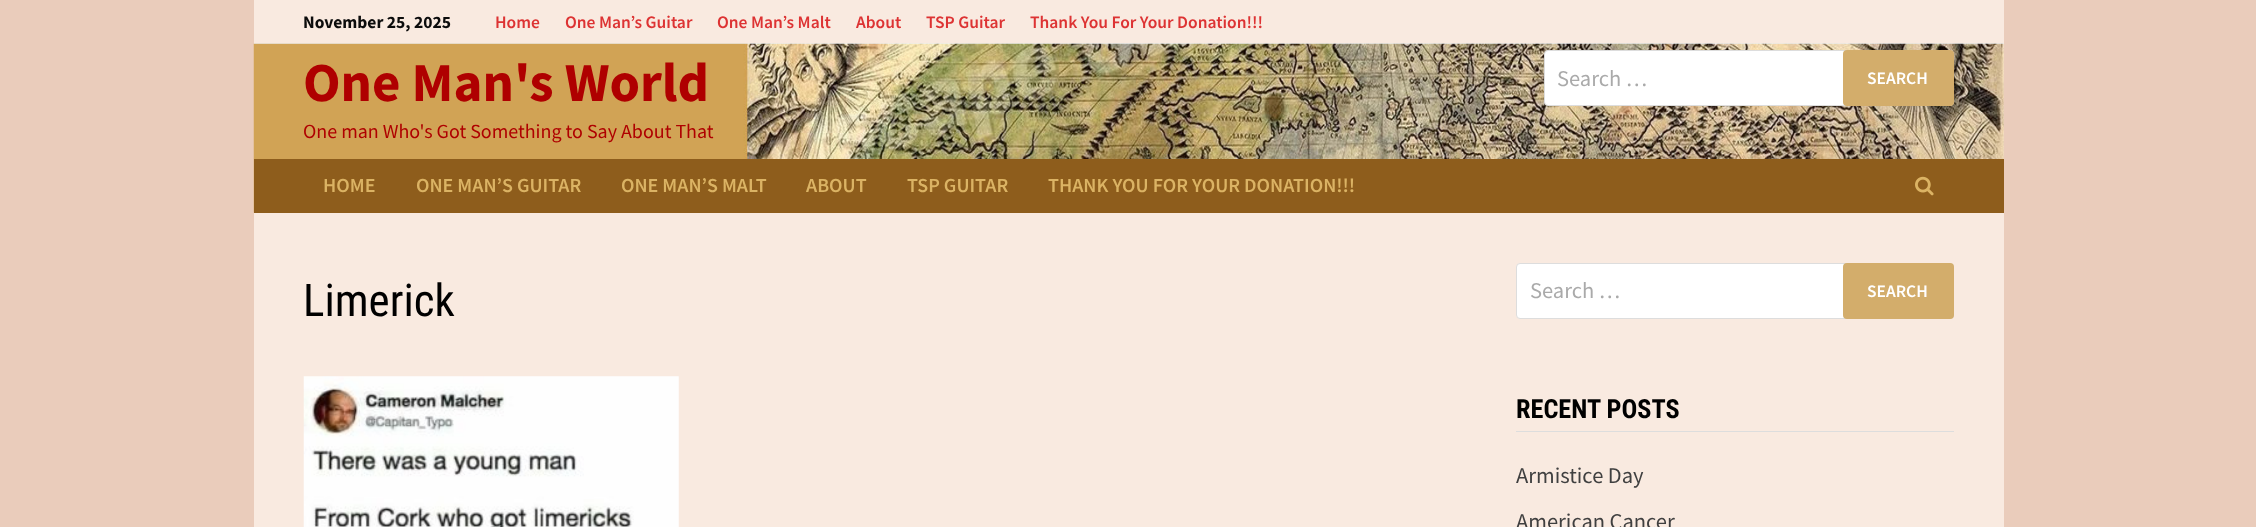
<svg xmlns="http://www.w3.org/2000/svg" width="2256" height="527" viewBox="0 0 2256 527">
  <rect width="100%" height="100%" fill="rgb(234,204,187)"/>
  <rect x="254" y="0" width="1750" height="527" fill="rgb(249,234,224)"/>
  <rect x="254" y="43" width="1750" height="1" fill="rgb(238,238,238)"/>
  <text x="303" y="28" font-family="Source Sans Pro" font-size="17.5" font-weight="bold" fill="rgb(12,12,12)">November 25, 2025</text>
  <g font-family="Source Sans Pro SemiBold" font-size="17.5" font-weight="600" fill="rgb(221,51,51)">
    <text x="495" y="28">Home</text>
    <text x="565" y="28">One Man’s Guitar</text>
    <text x="717" y="28">One Man’s Malt</text>
    <text x="856" y="28">About</text>
    <text x="926" y="28">TSP Guitar</text>
    <text x="1030" y="28">Thank You For Your Donation!!!</text>
  </g>
  <image x="253" y="43" width="1751" height="170" href="pic1.png"/>
  <text x="303" y="101" font-family="Source Sans Pro" font-size="55" font-weight="bold" fill="rgb(175,0,0)">One Man's World</text>
  <text x="303" y="138" font-family="Source Sans Pro" font-size="20" fill="rgb(175,0,0)">One man Who's Got Something to Say About That</text>
  <rect x="1544.5" y="50.5" width="409" height="55" rx="3.5" fill="rgb(255,255,255)" stroke="rgb(221,221,221)"/>
  <text x="1557" y="86" font-family="Source Sans Pro" font-size="22.5" fill="rgb(170,170,170)">Search …</text>
  <rect x="1843" y="50" width="111" height="56" rx="4" fill="rgb(211,173,107)"/>
  <text x="1867" y="84" font-family="Source Sans Pro SemiBold" font-size="17.5" font-weight="600" fill="rgb(255,255,255)">SEARCH</text>
  <rect x="254" y="159" width="1750" height="54" fill="rgb(142,93,28)"/>
  <g font-family="Source Sans Pro SemiBold" font-size="20" font-weight="600" fill="rgb(219,179,100)">
    <text x="323" y="192">HOME</text>
    <text x="416" y="192">ONE MAN’S GUITAR</text>
    <text x="621" y="192">ONE MAN’S MALT</text>
    <text x="806" y="192">ABOUT</text>
    <text x="907" y="192">TSP GUITAR</text>
    <text x="1048" y="192">THANK YOU FOR YOUR DONATION!!!</text>
  </g>
  <image x="1915" y="176" width="19" height="20" href="pic2.png"/>
  <text x="303" y="316" font-family="Roboto Condensed" font-size="45" fill="rgb(0,0,0)">Limerick</text>
  <image x="303" y="376" width="376" height="151" href="pic3.png"/>
  <rect x="1516.5" y="263.5" width="437" height="55" rx="3.5" fill="rgb(255,255,255)" stroke="rgb(221,221,221)"/>
  <text x="1530" y="298" font-family="Source Sans Pro" font-size="22.5" fill="rgb(170,170,170)">Search …</text>
  <rect x="1843" y="263" width="111" height="56" rx="4" fill="rgb(211,173,107)"/>
  <text x="1867" y="297" font-family="Source Sans Pro SemiBold" font-size="17.5" font-weight="600" fill="rgb(255,255,255)">SEARCH</text>
  <rect x="1516" y="431" width="438" height="1" fill="rgb(221,221,221)"/>
  <text x="1516" y="418" font-family="Roboto Condensed" font-size="26.25" font-weight="bold" fill="rgb(0,0,0)">RECENT POSTS</text>
  <g font-family="Source Sans Pro" font-size="22.5" fill="rgb(64,64,64)">
    <text x="1516" y="483">Armistice Day</text>
    <text x="1516" y="529">American Cancer</text>
  </g>
</svg>
